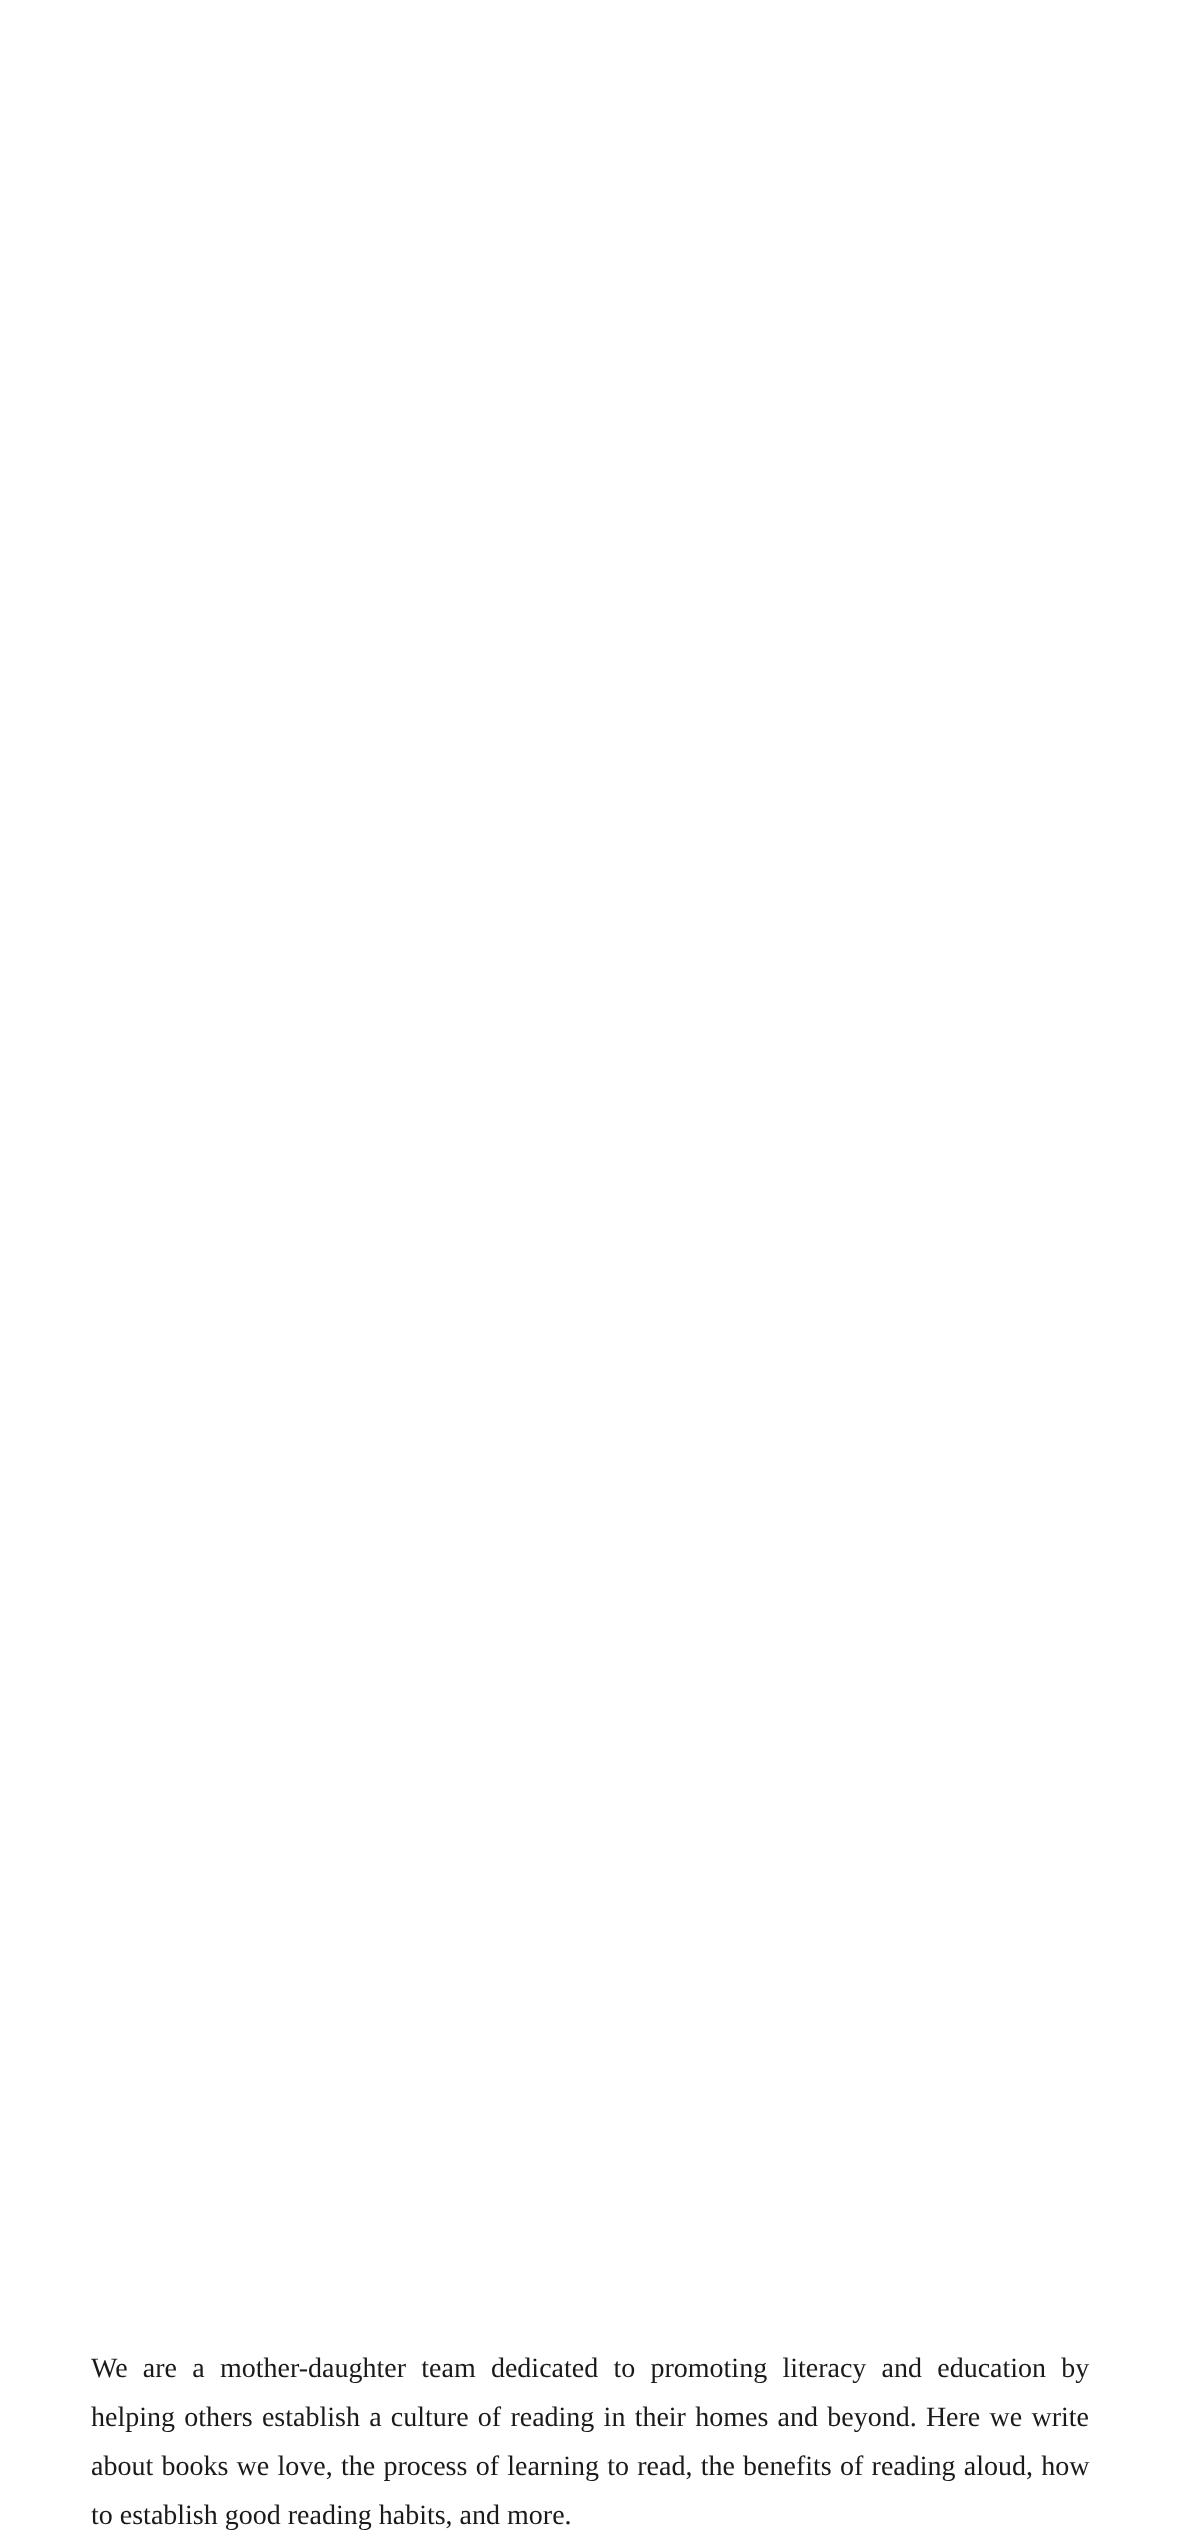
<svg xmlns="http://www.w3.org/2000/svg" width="1178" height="2545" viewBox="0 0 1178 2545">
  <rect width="100%" height="100%" fill="rgb(255,255,255)"/>
  <g font-family="Liberation Serif" font-size="28" fill="rgb(26,26,26)">
    <text>
      <tspan x="91" y="2377" word-spacing="8.25">We are a mother-daughter team dedicated to promoting literacy and education by</tspan>
      <tspan x="91" y="2426" word-spacing="2.25">helping others establish a culture of reading in their homes and beyond. Here we write</tspan>
      <tspan x="91" y="2475" word-spacing="1.25">about books we love, the process of learning to read, the benefits of reading aloud, how</tspan>
      <tspan x="91" y="2524">to establish good reading habits, and more.</tspan>
    </text>
  </g>
</svg>
